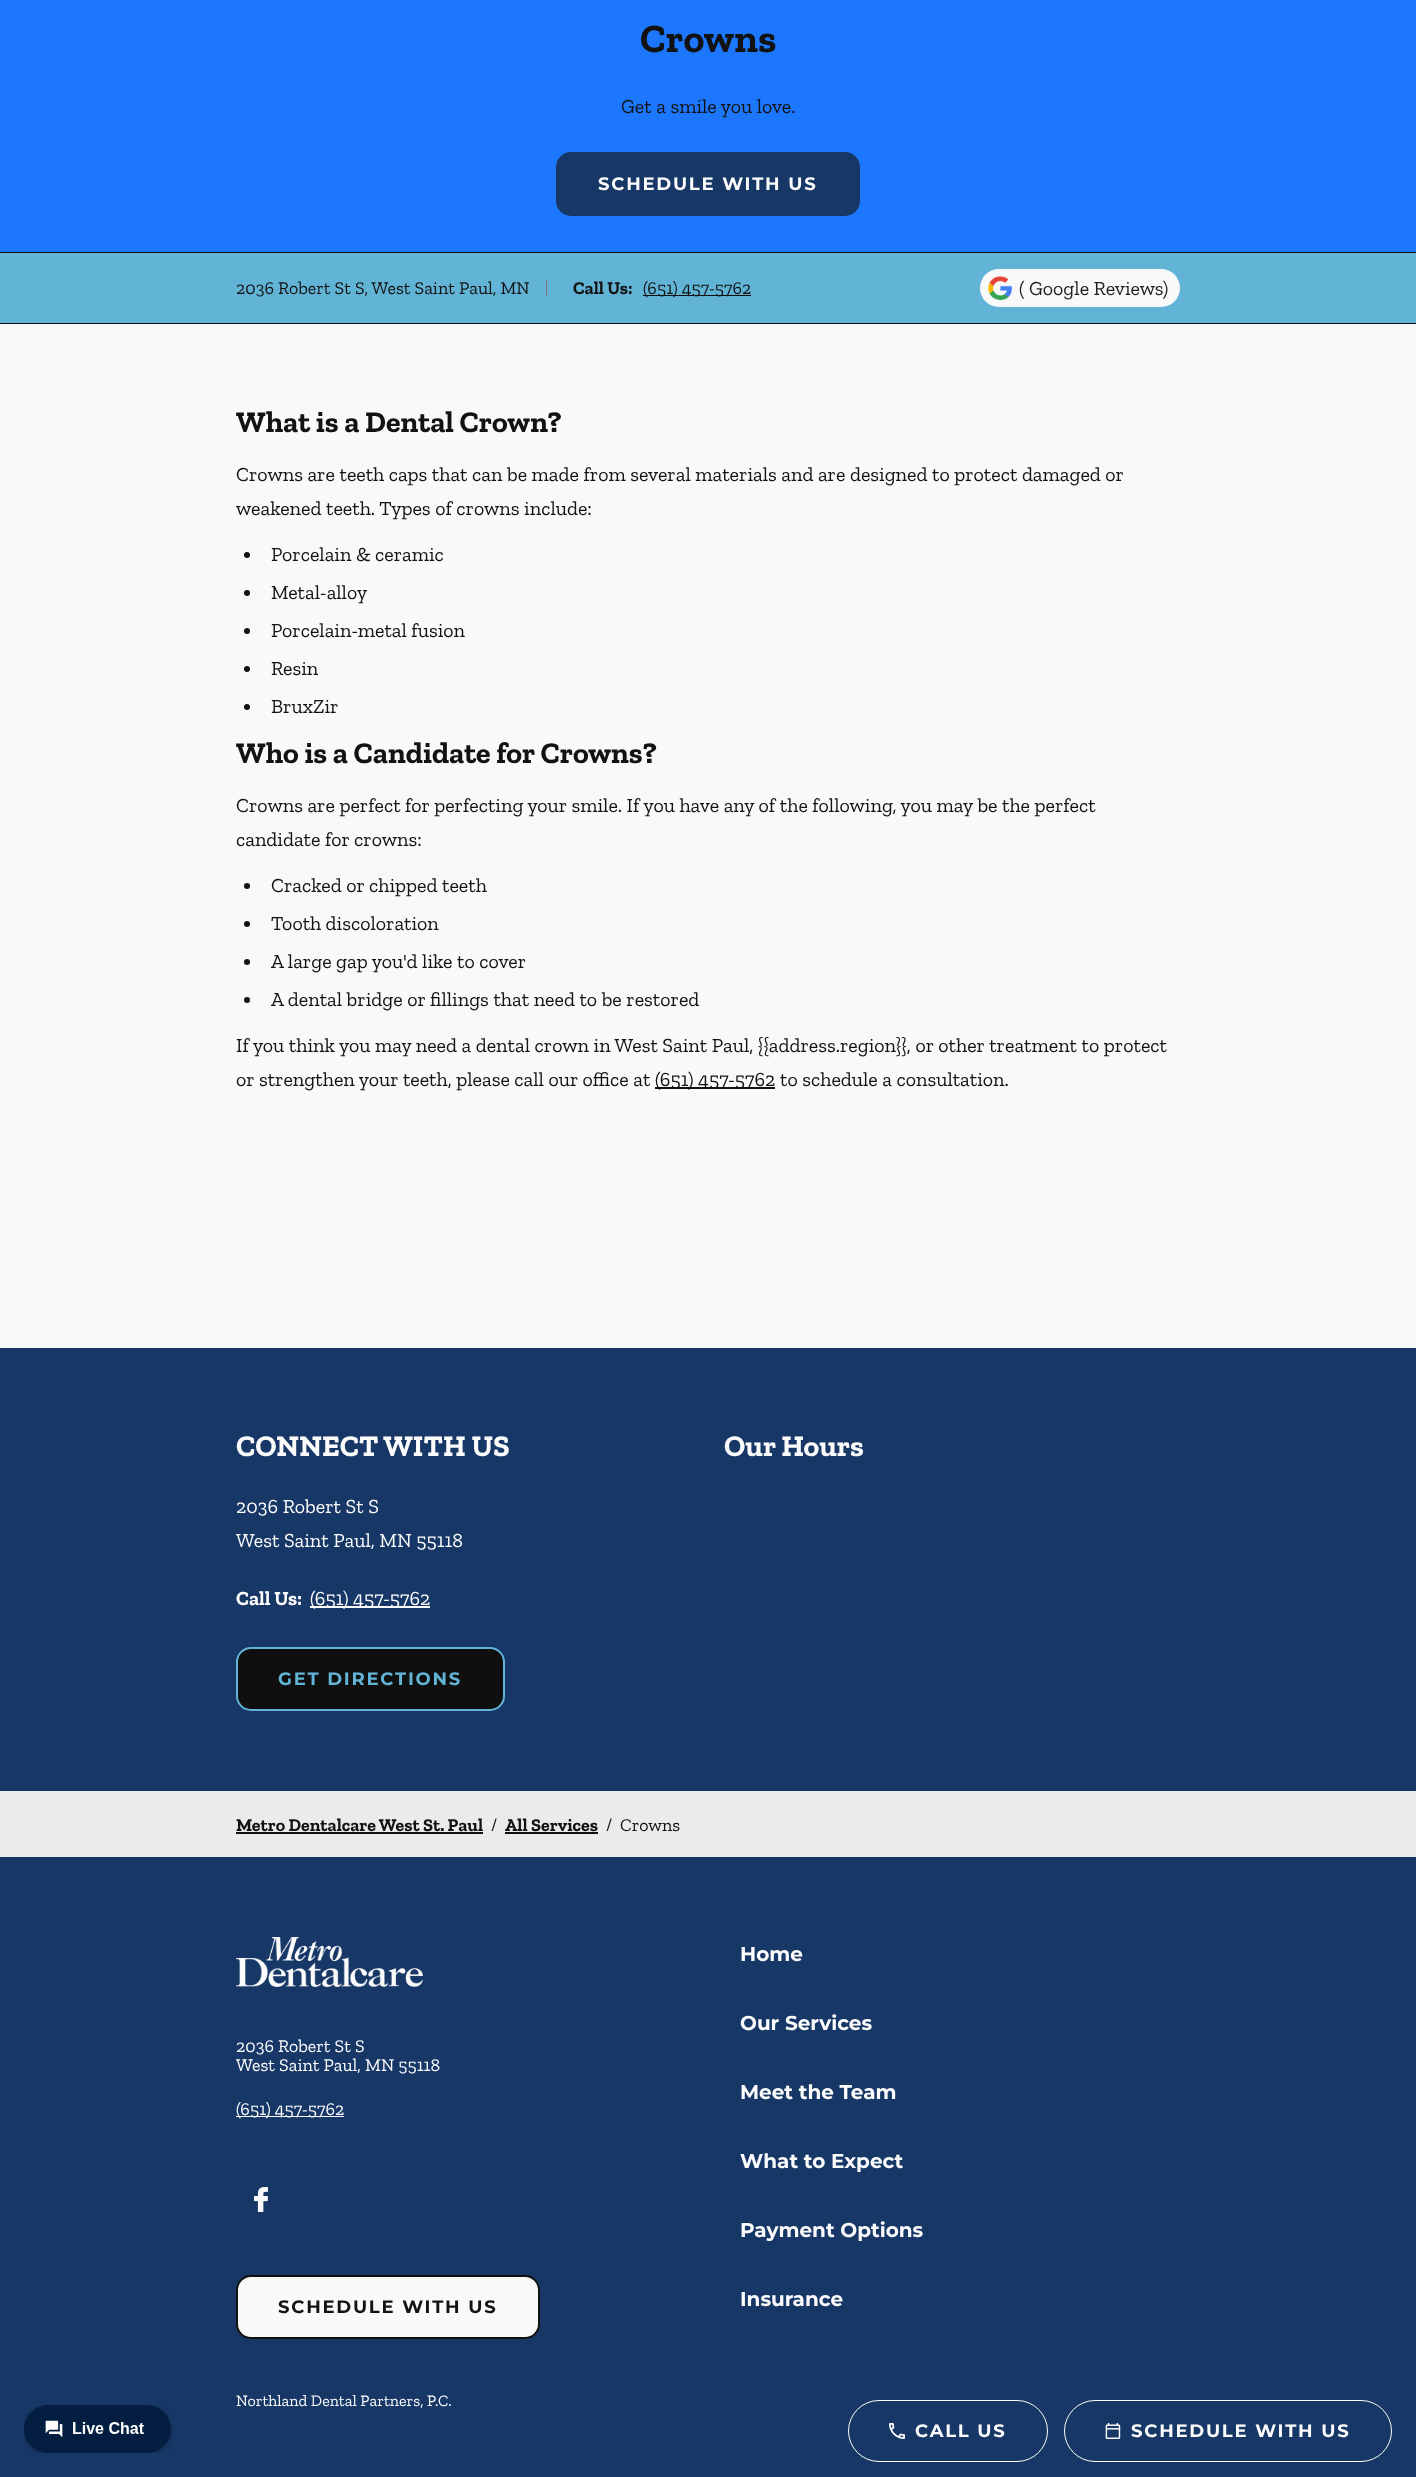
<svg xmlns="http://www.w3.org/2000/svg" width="1416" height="2477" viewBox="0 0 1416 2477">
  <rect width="100%" height="100%" fill="rgb(249,249,249)"/>
  <rect x="0" y="1857" width="1416" height="620" fill="rgb(23,55,103)"/>
  <image x="24" y="2405" width="149" height="48" href="pic1.png"/>
  <rect x="0" y="0" width="1416" height="252" fill="rgb(29,119,253)"/>
  <text x="640" y="52" font-family="Zilla Slab" font-size="40" font-weight="bold" fill="rgb(18,18,18)">Crowns</text>
  <text x="621" y="113" font-family="Zilla Slab" font-size="20" fill="rgb(18,18,18)">Get a smile you love.</text>
  <rect x="557" y="153" width="302" height="62" rx="14" fill="rgb(23,55,103)" stroke="rgb(23,55,103)" stroke-width="2"/>
  <text x="598" y="190" font-family="Montserrat" font-size="18" font-weight="bold" letter-spacing="1.75" fill="rgb(252,252,252)">SCHEDULE WITH US</text>
  <rect x="0" y="253" width="1416" height="70" fill="rgb(98,180,214)"/>
  <rect x="0" y="252" width="1416" height="1" fill="rgb(15,15,15)"/>
  <rect x="0" y="323" width="1416" height="1" fill="rgb(15,15,15)"/>
  <text x="236" y="294" font-family="Zilla Slab" font-size="18" fill="rgb(18,18,18)">2036 Robert St S, West Saint Paul, MN</text>
  <rect x="546" y="280" width="1" height="16" fill="rgb(122,122,122)"/>
  <text x="573" y="294" font-family="Zilla Slab" font-size="18" font-weight="bold" fill="rgb(18,18,18)">Call Us:</text>
  <rect x="643" y="295" width="108" height="1" fill="rgb(15,15,15)"/>
  <text x="643" y="294" font-family="Zilla Slab" font-size="18" fill="rgb(18,18,18)">(651) 457-5762</text>
  <rect x="980" y="269" width="200" height="38" rx="19" fill="rgb(249,249,249)"/>
  <image x="988" y="276" width="24" height="24" href="pic2.png"/>
  <text x="1019" y="295" font-family="Zilla Slab" font-size="20" fill="rgb(31,31,31)">( Google Reviews)</text>
  <text x="236" y="432" font-family="Zilla Slab" font-size="30" font-weight="bold" fill="rgb(18,18,18)">What is a Dental Crown?</text>
  <g font-family="Zilla Slab" font-size="20" fill="rgb(18,18,18)">
    <text>
      <tspan x="236" y="481">Crowns are teeth caps that can be made from several materials and are designed to protect damaged or</tspan>
      <tspan x="236" y="515">weakened teeth. Types of crowns include:</tspan>
    </text>
  </g>
  <circle cx="247" cy="555" r="3" fill="rgb(18,18,18)"/>
  <text x="271" y="561" font-family="Zilla Slab" font-size="20" fill="rgb(18,18,18)">Porcelain &amp; ceramic</text>
  <circle cx="247" cy="593" r="3" fill="rgb(18,18,18)"/>
  <text x="271" y="599" font-family="Zilla Slab" font-size="20" fill="rgb(18,18,18)">Metal-alloy</text>
  <circle cx="247" cy="631" r="3" fill="rgb(18,18,18)"/>
  <text x="271" y="637" font-family="Zilla Slab" font-size="20" fill="rgb(18,18,18)">Porcelain-metal fusion</text>
  <circle cx="247" cy="669" r="3" fill="rgb(18,18,18)"/>
  <text x="271" y="675" font-family="Zilla Slab" font-size="20" fill="rgb(18,18,18)">Resin</text>
  <circle cx="247" cy="707" r="3" fill="rgb(18,18,18)"/>
  <text x="271" y="713" font-family="Zilla Slab" font-size="20" fill="rgb(18,18,18)">BruxZir</text>
  <text x="236" y="763" font-family="Zilla Slab" font-size="30" font-weight="bold" fill="rgb(18,18,18)">Who is a Candidate for Crowns?</text>
  <g font-family="Zilla Slab" font-size="20" fill="rgb(18,18,18)">
    <text>
      <tspan x="236" y="812">Crowns are perfect for perfecting your smile. If you have any of the following, you may be the perfect</tspan>
      <tspan x="236" y="846">candidate for crowns:</tspan>
    </text>
  </g>
  <circle cx="247" cy="886" r="3" fill="rgb(18,18,18)"/>
  <text x="271" y="892" font-family="Zilla Slab" font-size="20" fill="rgb(18,18,18)">Cracked or chipped teeth</text>
  <circle cx="247" cy="924" r="3" fill="rgb(18,18,18)"/>
  <text x="271" y="930" font-family="Zilla Slab" font-size="20" fill="rgb(18,18,18)">Tooth discoloration</text>
  <circle cx="247" cy="962" r="3" fill="rgb(18,18,18)"/>
  <text x="271" y="968" font-family="Zilla Slab" font-size="20" fill="rgb(18,18,18)">A large gap you'd like to cover</text>
  <circle cx="247" cy="1000" r="3" fill="rgb(18,18,18)"/>
  <g font-family="Zilla Slab" font-size="20" fill="rgb(18,18,18)">
    <text x="271" y="1006">A dental bridge or fillings that need to be restored</text>
    <text>
      <tspan x="236" y="1052">If you think you may need a dental crown in West Saint Paul, {{address.region}}, or other treatment to protect</tspan>
      <tspan x="236" y="1086">or strengthen your teeth, please call our office at</tspan>
    </text>
  </g>
  <rect x="655" y="1087" width="120" height="2" fill="rgb(18,18,18)"/>
  <text x="655" y="1086" font-family="Zilla Slab" font-size="20" fill="rgb(18,18,18)">(651) 457-5762 to schedule a consultation.</text>
  <rect x="0" y="1348" width="1416" height="443" fill="rgb(23,55,103)"/>
  <text x="236" y="1456" font-family="Zilla Slab" font-size="30" font-weight="bold" fill="rgb(252,252,252)">CONNECT WITH US</text>
  <g font-family="Zilla Slab" font-size="20" fill="rgb(252,252,252)">
    <text>
      <tspan x="236" y="1513">2036 Robert St S</tspan>
      <tspan x="236" y="1547">West Saint Paul, MN 55118</tspan>
    </text>
  </g>
  <text x="236" y="1605" font-family="Zilla Slab" font-size="20" font-weight="bold" fill="rgb(252,252,252)">Call Us:</text>
  <rect x="310" y="1606" width="120" height="2" fill="rgb(252,252,252)"/>
  <text x="310" y="1605" font-family="Zilla Slab" font-size="20" fill="rgb(252,252,252)">(651) 457-5762</text>
  <rect x="237" y="1648" width="267" height="62" rx="14" fill="rgb(15,15,15)" stroke="rgb(98,180,214)" stroke-width="2"/>
  <text x="278" y="1685" font-family="Montserrat" font-size="18" font-weight="bold" letter-spacing="1.75" fill="rgb(98,180,214)">GET DIRECTIONS</text>
  <text x="724" y="1456" font-family="Zilla Slab" font-size="30" font-weight="bold" fill="rgb(252,252,252)">Our Hours</text>
  <rect x="0" y="1791" width="1416" height="66" fill="rgb(235,235,235)"/>
  <text x="236" y="1831" font-family="Zilla Slab" font-size="18" font-weight="bold" fill="rgb(18,18,18)">Metro Dentalcare West St. Paul</text>
  <rect x="236" y="1832" width="247" height="2" fill="rgb(18,18,18)"/>
  <text x="491" y="1831" font-family="Zilla Slab" font-size="18" fill="rgb(18,18,18)">/</text>
  <text x="505" y="1831" font-family="Zilla Slab" font-size="18" font-weight="bold" fill="rgb(18,18,18)">All Services</text>
  <rect x="505" y="1832" width="93" height="2" fill="rgb(18,18,18)"/>
  <g font-family="Zilla Slab" font-size="18" fill="rgb(18,18,18)">
    <text x="606" y="1831">/</text>
    <text x="620" y="1831">Crowns</text>
  </g>
  <image x="236" y="1937" width="187" height="50" href="pic3.png"/>
  <g font-family="Zilla Slab" font-size="18" fill="rgb(252,252,252)">
    <text>
      <tspan x="236" y="2052">2036 Robert St S</tspan>
      <tspan x="236" y="2071">West Saint Paul, MN 55118</tspan>
    </text>
  </g>
  <rect x="236" y="2116" width="108" height="1" fill="rgb(252,252,252)"/>
  <text x="236" y="2115" font-family="Zilla Slab" font-size="18" fill="rgb(252,252,252)">(651) 457-5762</text>
  <image x="254" y="2187" width="14" height="25" href="pic4.png"/>
  <rect x="237" y="2276" width="302" height="62" rx="14" fill="rgb(249,249,249)" stroke="rgb(18,18,18)" stroke-width="2"/>
  <text x="278" y="2313" font-family="Montserrat" font-size="18" font-weight="bold" letter-spacing="1.75" fill="rgb(18,18,18)">SCHEDULE WITH US</text>
  <text x="236" y="2406" font-family="Zilla Slab" font-size="16" fill="rgb(252,252,252)">Northland Dental Partners, P.C.</text>
  <g font-family="Montserrat" font-size="20" font-weight="bold" fill="rgb(252,252,252)">
    <text x="740" y="1961">Home</text>
    <text x="740" y="2030">Our Services</text>
    <text x="740" y="2099">Meet the Team</text>
    <text x="740" y="2168">What to Expect</text>
    <text x="740" y="2237">Payment Options</text>
    <text x="740" y="2306">Insurance</text>
  </g>
  <rect x="848.5" y="2400.5" width="199" height="61" rx="30.5" fill="none" stroke="rgb(252,252,252)"/>
  <image x="889" y="2423" width="16" height="16" href="pic5.png"/>
  <text x="915" y="2437" font-family="Montserrat" font-size="18" font-weight="bold" letter-spacing="1.75" fill="rgb(252,252,252)">CALL US</text>
  <rect x="1064.5" y="2400.5" width="327" height="61" rx="30.5" fill="none" stroke="rgb(252,252,252)"/>
  <image x="1105" y="2423" width="16" height="16" href="pic6.png"/>
  <text x="1131" y="2437" font-family="Montserrat" font-size="18" font-weight="bold" letter-spacing="1.75" fill="rgb(252,252,252)">SCHEDULE WITH US</text>
</svg>
